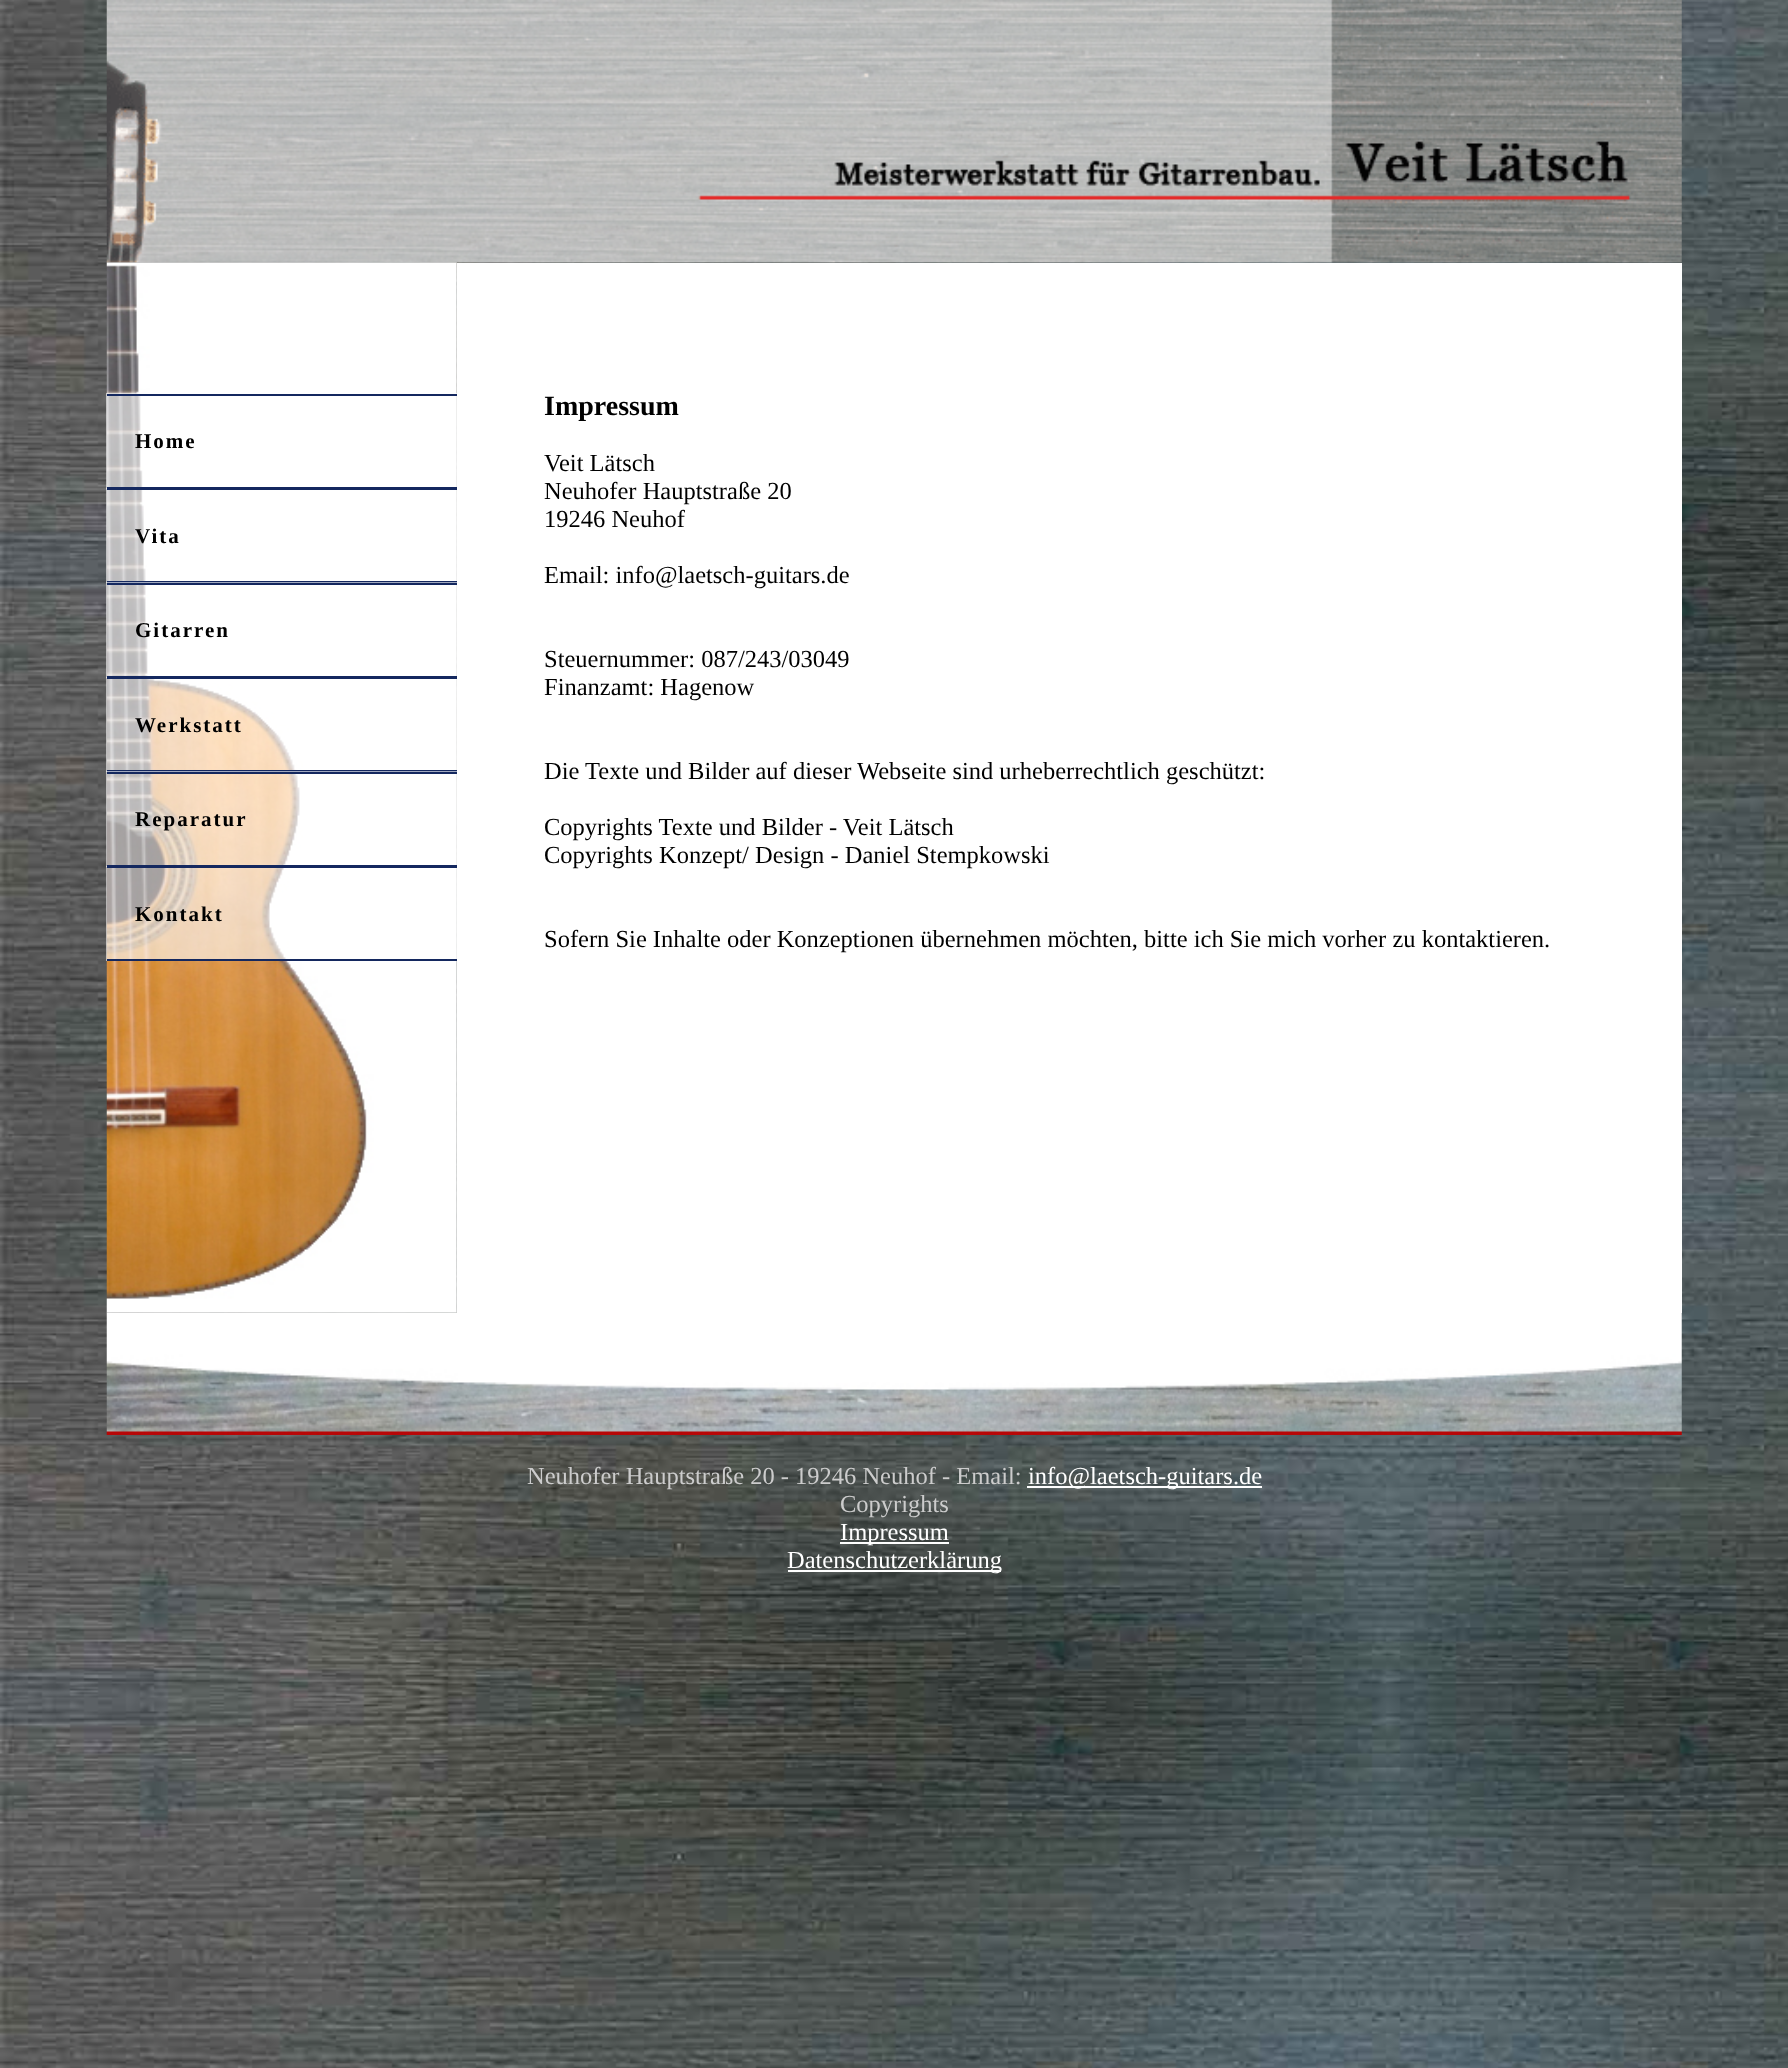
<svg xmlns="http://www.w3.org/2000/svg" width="1788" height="2068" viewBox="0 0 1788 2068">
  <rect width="100%" height="100%" fill="rgb(255,255,255)"/>
  <image x="0" y="0" width="1788" height="2068" href="pic1.png"/>
  <image x="106" y="0" width="1576" height="263" href="pic2.png"/>
  <image x="106" y="262" width="351" height="1051" href="pic3.png"/>
  <rect x="106" y="393" width="351" height="96" fill="rgba(255,255,255,0.6)"/>
  <rect x="107" y="394" width="350" height="2" fill="rgb(20,40,95)"/>
  <rect x="107" y="487" width="350" height="1" fill="rgb(20,40,95)"/>
  <text x="135" y="448" font-family="Liberation Serif" font-size="21" font-weight="bold" letter-spacing="2" fill="rgb(0,0,0)">Home</text>
  <rect x="106" y="488" width="351" height="95" fill="rgba(255,255,255,0.6)"/>
  <rect x="107" y="488" width="350" height="2" fill="rgb(20,40,95)"/>
  <rect x="107" y="581" width="350" height="2" fill="rgb(20,40,95)"/>
  <text x="135" y="543" font-family="Liberation Serif" font-size="21" font-weight="bold" letter-spacing="2" fill="rgb(0,0,0)">Vita</text>
  <rect x="106" y="582" width="351" height="96" fill="rgba(255,255,255,0.6)"/>
  <rect x="107" y="583" width="350" height="2" fill="rgb(20,40,95)"/>
  <rect x="107" y="676" width="350" height="1" fill="rgb(20,40,95)"/>
  <text x="135" y="637" font-family="Liberation Serif" font-size="21" font-weight="bold" letter-spacing="2" fill="rgb(0,0,0)">Gitarren</text>
  <rect x="106" y="677" width="351" height="95" fill="rgba(255,255,255,0.6)"/>
  <rect x="107" y="677" width="350" height="2" fill="rgb(20,40,95)"/>
  <rect x="107" y="770" width="350" height="2" fill="rgb(20,40,95)"/>
  <text x="135" y="732" font-family="Liberation Serif" font-size="21" font-weight="bold" letter-spacing="2" fill="rgb(0,0,0)">Werkstatt</text>
  <rect x="106" y="771" width="351" height="96" fill="rgba(255,255,255,0.6)"/>
  <rect x="107" y="772" width="350" height="2" fill="rgb(20,40,95)"/>
  <rect x="107" y="865" width="350" height="1" fill="rgb(20,40,95)"/>
  <text x="135" y="826" font-family="Liberation Serif" font-size="21" font-weight="bold" letter-spacing="2" fill="rgb(0,0,0)">Reparatur</text>
  <rect x="106" y="866" width="351" height="95" fill="rgba(255,255,255,0.6)"/>
  <rect x="107" y="866" width="350" height="2" fill="rgb(20,40,95)"/>
  <rect x="107" y="959" width="350" height="2" fill="rgb(20,40,95)"/>
  <text x="135" y="921" font-family="Liberation Serif" font-size="21" font-weight="bold" letter-spacing="2" fill="rgb(0,0,0)">Kontakt</text>
  <rect x="457" y="263" width="1225" height="1050" fill="rgb(255,255,255)"/>
  <text x="544" y="415" font-family="Liberation Serif" font-size="28" font-weight="bold" fill="rgb(0,0,0)">Impressum</text>
  <g font-family="Liberation Serif" font-size="24.5" fill="rgb(0,0,0)">
    <text>
      <tspan x="544" y="471">Veit Lätsch</tspan>
      <tspan x="544" y="499">Neuhofer Hauptstraße 20</tspan>
      <tspan x="544" y="527">19246 Neuhof</tspan>
    </text>
    <text x="544" y="583">Email: info@laetsch-guitars.de</text>
    <text>
      <tspan x="544" y="667">Steuernummer: 087/243/03049</tspan>
      <tspan x="544" y="695">Finanzamt: Hagenow</tspan>
    </text>
    <text x="544" y="779">Die Texte und Bilder auf dieser Webseite sind urheberrechtlich geschützt:</text>
    <text>
      <tspan x="544" y="835">Copyrights Texte und Bilder - Veit Lätsch</tspan>
      <tspan x="544" y="863">Copyrights Konzept/ Design - Daniel Stempkowski</tspan>
    </text>
    <text x="544" y="947">Sofern Sie Inhalte oder Konzeptionen übernehmen möchten, bitte ich Sie mich vorher zu kontaktieren.</text>
  </g>
  <image x="106" y="1312" width="1576" height="123" href="pic4.png"/>
  <text x="527" y="1484" font-family="Liberation Serif" font-size="24.5" fill="rgb(204,204,204)">Neuhofer Hauptstraße 20 - 19246 Neuhof - Email:</text>
  <rect x="1027" y="1486" width="235" height="2" fill="rgb(255,255,255)"/>
  <text x="1028" y="1484" font-family="Liberation Serif" font-size="24.5" fill="rgb(255,255,255)">info@laetsch-guitars.de</text>
  <text x="840" y="1512" font-family="Liberation Serif" font-size="24.5" fill="rgb(204,204,204)">Copyrights</text>
  <rect x="840" y="1542" width="109" height="2" fill="rgb(255,255,255)"/>
  <text x="840" y="1540" font-family="Liberation Serif" font-size="24.5" fill="rgb(255,255,255)">Impressum</text>
  <rect x="788" y="1570" width="213" height="2" fill="rgb(255,255,255)"/>
  <text x="787" y="1568" font-family="Liberation Serif" font-size="24.5" fill="rgb(255,255,255)">Datenschutzerklärung</text>
</svg>
